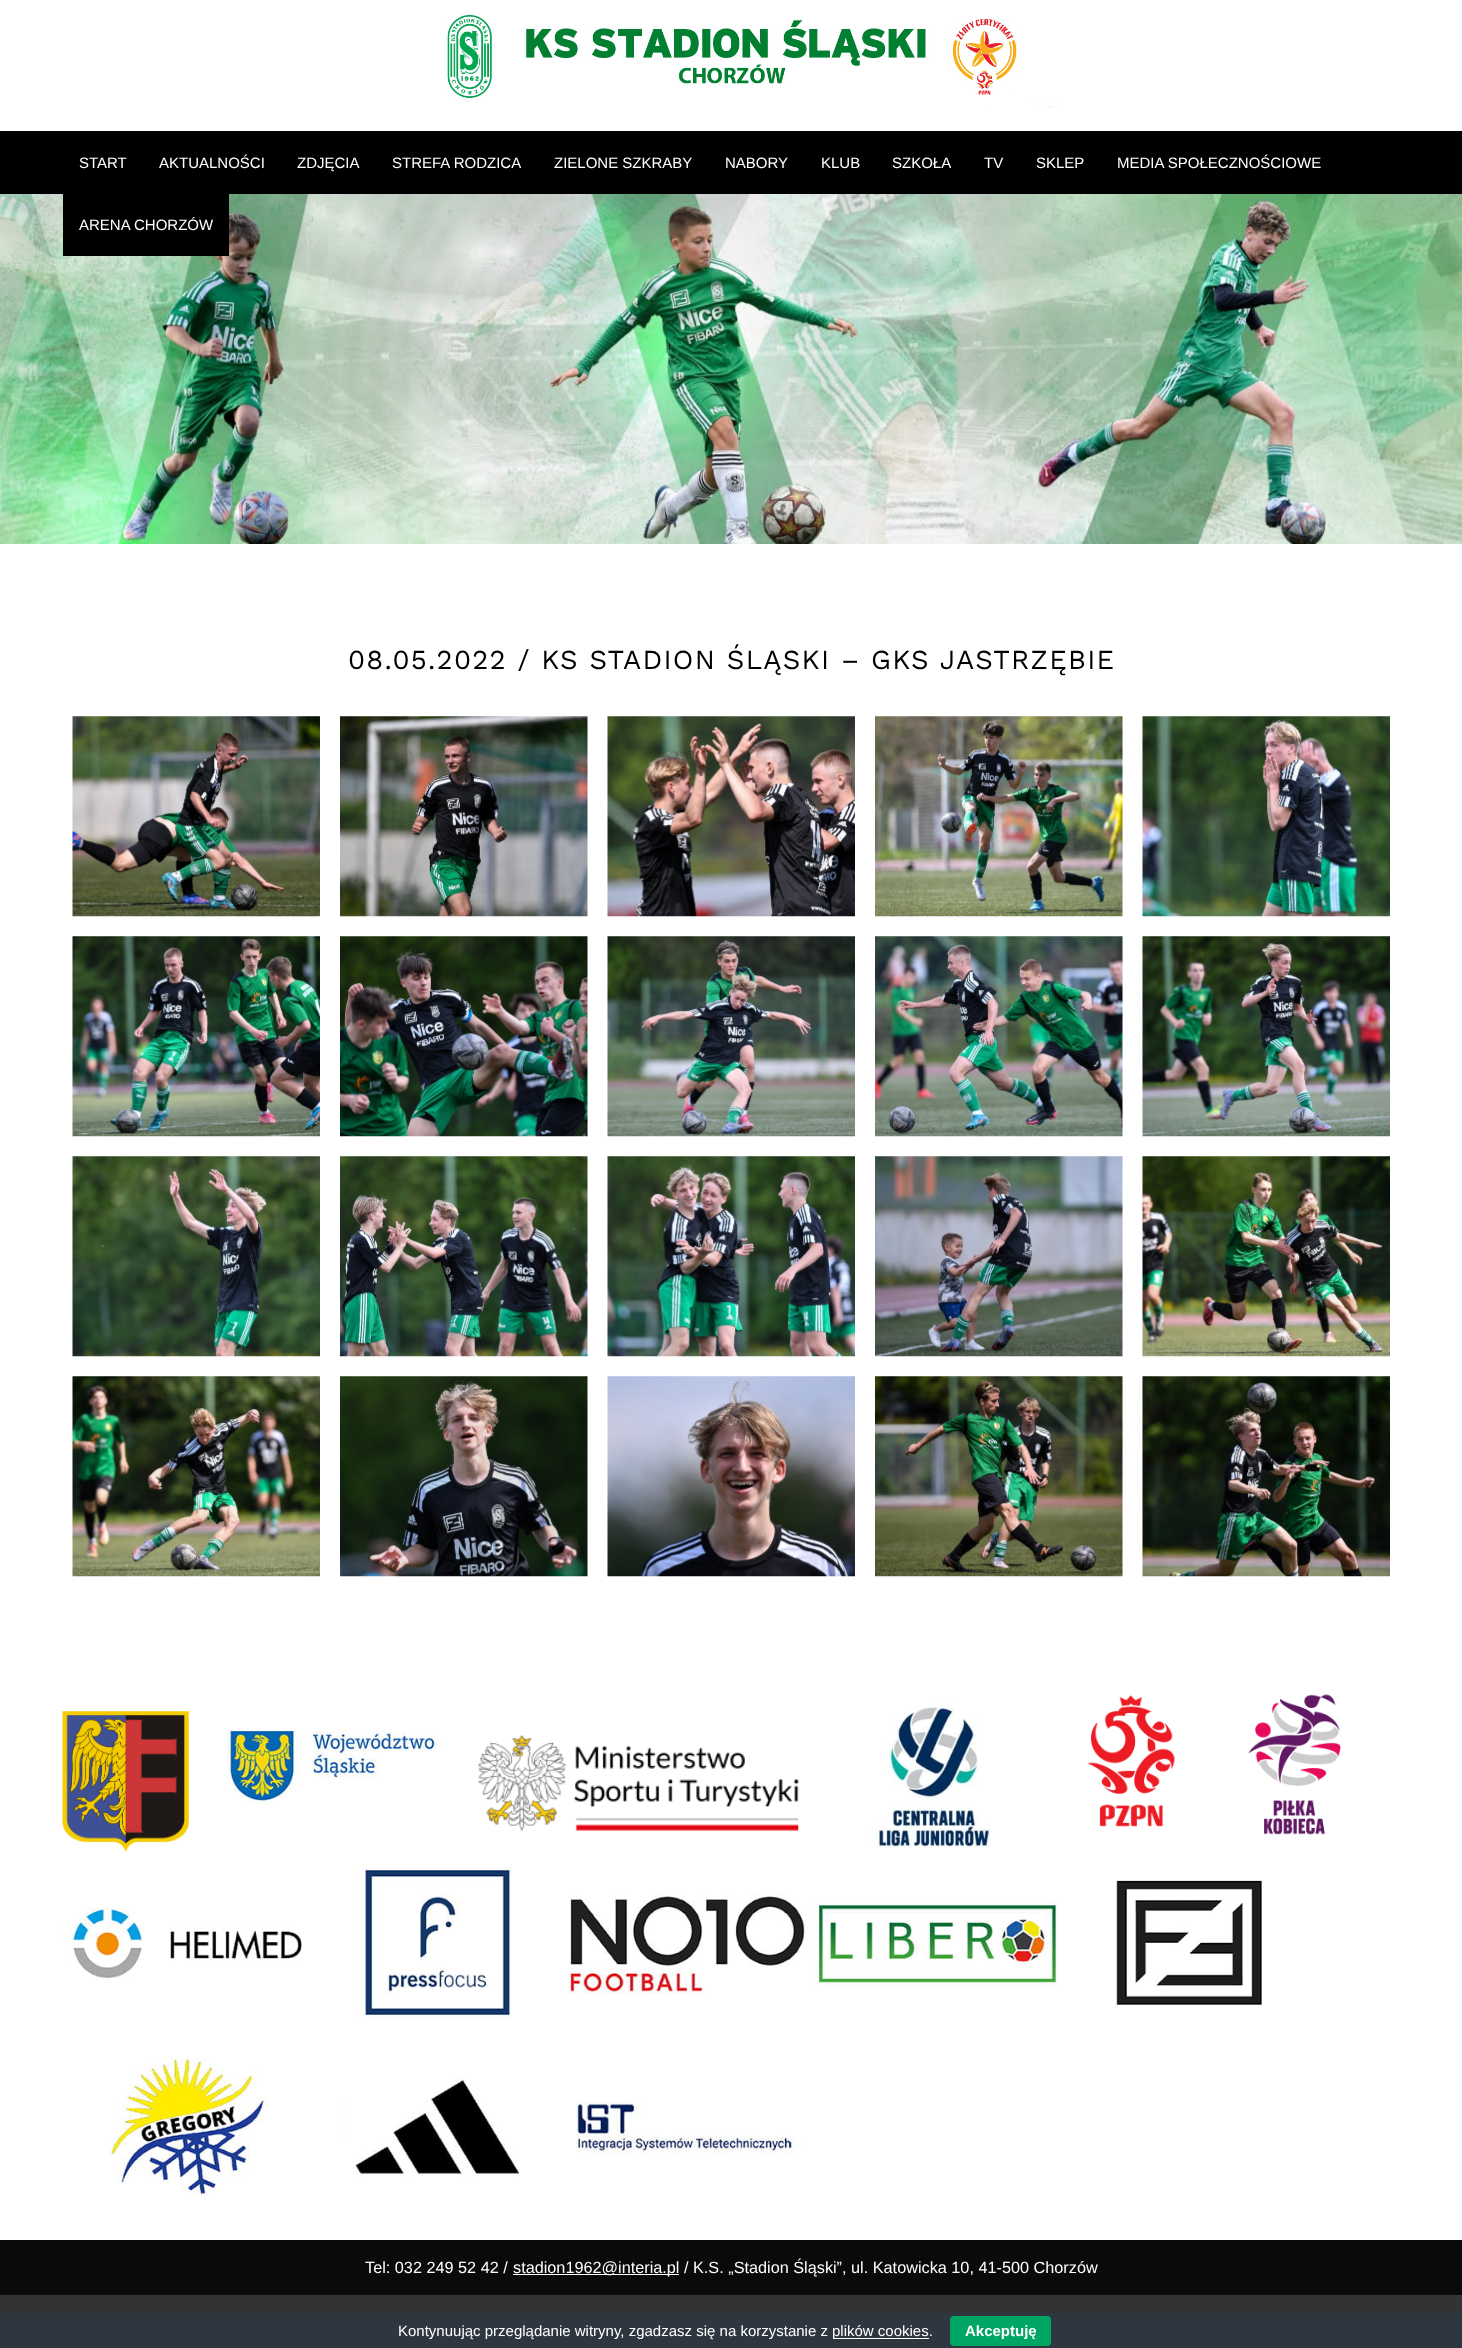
<svg xmlns="http://www.w3.org/2000/svg" width="1462" height="2348" viewBox="0 0 1462 2348">
  <rect width="100%" height="100%" fill="rgb(51,51,51)"/>
  <rect x="0" y="0" width="1462" height="2240" fill="rgb(255,255,255)"/>
  <image x="445" y="13" width="615" height="95" href="pic1.png"/>
  <rect x="0" y="131" width="1462" height="63" fill="rgb(0,0,0)"/>
  <g font-family="Liberation Sans" font-size="15" fill="rgb(255,255,255)">
    <text x="79" y="168">START</text>
    <text x="159" y="168">AKTUALNOŚCI</text>
    <text x="297" y="168">ZDJĘCIA</text>
    <text x="392" y="168">STREFA RODZICA</text>
    <text x="554" y="168">ZIELONE SZKRABY</text>
    <text x="725" y="168">NABORY</text>
    <text x="821" y="168">KLUB</text>
    <text x="892" y="168">SZKOŁA</text>
    <text x="984" y="168">TV</text>
    <text x="1036" y="168">SKLEP</text>
    <text x="1117" y="168">MEDIA SPOŁECZNOŚCIOWE</text>
  </g>
  <image x="0" y="194" width="1462" height="350" href="pic2.png"/>
  <rect x="63" y="194" width="166" height="62" fill="rgb(0,0,0)"/>
  <text x="79" y="230" font-family="Liberation Sans" font-size="15" fill="rgb(255,255,255)">ARENA CHORZÓW</text>
  <text x="348" y="669" font-family="Work Sans" font-size="27.5" letter-spacing="1.25" fill="rgb(0,0,0)">08.05.2022 / KS STADION ŚLĄSKI – GKS JASTRZĘBIE</text>
  <image x="72" y="716" width="248" height="201" href="pic3.png"/>
  <image x="340" y="716" width="248" height="201" href="pic4.png"/>
  <image x="607" y="716" width="248" height="201" href="pic5.png"/>
  <image x="875" y="716" width="248" height="201" href="pic6.png"/>
  <image x="1142" y="716" width="248" height="201" href="pic7.png"/>
  <image x="72" y="936" width="248" height="201" href="pic8.png"/>
  <image x="340" y="936" width="248" height="201" href="pic9.png"/>
  <image x="607" y="936" width="248" height="201" href="pic10.png"/>
  <image x="875" y="936" width="248" height="201" href="pic11.png"/>
  <image x="1142" y="936" width="248" height="201" href="pic12.png"/>
  <image x="72" y="1156" width="248" height="201" href="pic13.png"/>
  <image x="340" y="1156" width="248" height="201" href="pic14.png"/>
  <image x="607" y="1156" width="248" height="201" href="pic15.png"/>
  <image x="875" y="1156" width="248" height="201" href="pic16.png"/>
  <image x="1142" y="1156" width="248" height="201" href="pic17.png"/>
  <image x="72" y="1376" width="248" height="201" href="pic18.png"/>
  <image x="340" y="1376" width="248" height="201" href="pic19.png"/>
  <image x="607" y="1376" width="248" height="201" href="pic20.png"/>
  <image x="875" y="1376" width="248" height="201" href="pic21.png"/>
  <image x="1142" y="1376" width="248" height="201" href="pic22.png"/>
  <image x="62" y="1711" width="127" height="141" href="pic23.png"/>
  <image x="226" y="1730" width="218" height="75" href="pic24.png"/>
  <image x="478" y="1735" width="321" height="96" href="pic25.png"/>
  <image x="869" y="1701" width="122" height="147" href="pic26.png"/>
  <image x="1087" y="1695" width="88" height="132" href="pic27.png"/>
  <image x="1248" y="1694" width="93" height="141" href="pic28.png"/>
  <image x="63" y="1907" width="240" height="73" href="pic29.png"/>
  <image x="359" y="1867" width="153" height="154" href="pic30.png"/>
  <image x="563" y="1894" width="245" height="100" href="pic31.png"/>
  <image x="813" y="1900" width="246" height="87" href="pic32.png"/>
  <image x="1116" y="1880" width="146" height="125" href="pic33.png"/>
  <image x="104" y="2057" width="165" height="140" href="pic34.png"/>
  <image x="343" y="2077" width="177" height="100" href="pic35.png"/>
  <image x="576" y="2102" width="226" height="55" href="pic36.png"/>
  <rect x="0" y="2240" width="1462" height="55" fill="rgb(10,10,10)"/>
  <text x="365" y="2273" font-family="Liberation Sans" font-size="16.25" fill="rgb(255,255,255)">Tel: 032 249 52 42 /</text>
  <rect x="513" y="2274" width="166" height="1" fill="rgb(255,255,255)"/>
  <text x="513" y="2273" font-family="Liberation Sans" font-size="16.25" fill="rgb(255,255,255)">stadion1962@interia.pl / K.S. „Stadion Śląski”, ul. Katowicka 10, 41-500 Chorzów</text>
  <rect x="0" y="2313" width="1462" height="35" fill="rgb(46,54,63)"/>
  <text x="398" y="2336" font-family="Liberation Sans" font-size="15" fill="rgb(255,255,255)">Kontynuując przeglądanie witryny, zgadzasz się na korzystanie z</text>
  <rect x="833" y="2338" width="96" height="1" fill="rgb(255,255,255)"/>
  <text x="832" y="2336" font-family="Liberation Sans" font-size="15" fill="rgb(255,255,255)">plików cookies.</text>
  <rect x="950" y="2316" width="101" height="30" rx="4" fill="rgb(0,166,100)"/>
  <text x="965" y="2336" font-family="Liberation Sans" font-size="15" font-weight="bold" fill="rgb(255,255,255)">Akceptuję</text>
</svg>
